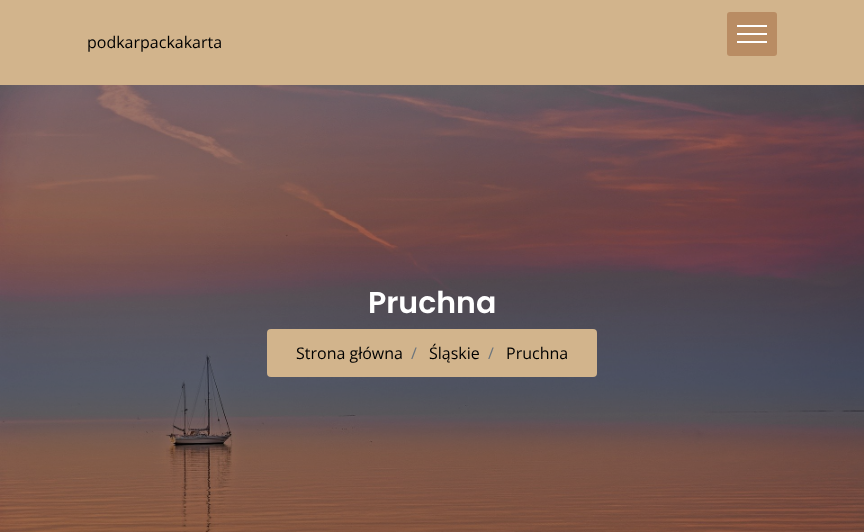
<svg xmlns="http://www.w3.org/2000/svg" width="864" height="532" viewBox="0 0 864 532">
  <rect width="100%" height="100%" fill="rgb(210,180,140)"/>
  <text x="87" y="48" font-family="Open Sans" font-size="16" fill="rgb(0,0,0)">podkarpackakarta</text>
  <rect x="727" y="12" width="50" height="44" rx="3" fill="rgb(185,140,99)"/>
  <rect x="737" y="25" width="30" height="2" fill="rgb(255,255,255)"/>
  <rect x="737" y="33" width="30" height="2" fill="rgb(255,255,255)"/>
  <rect x="737" y="41" width="30" height="2" fill="rgb(255,255,255)"/>
  <image x="0" y="85" width="864" height="447" href="pic1.png"/>
  <text x="368" y="313" font-family="Poppins" font-size="30" font-weight="600" fill="rgb(255,255,255)">Pruchna</text>
  <rect x="267" y="329" width="330" height="48" rx="4" fill="rgb(210,180,140)"/>
  <text x="296" y="359" font-family="Open Sans" font-size="16" fill="rgb(0,0,0)">Strona główna</text>
  <text x="411" y="359" font-family="Open Sans" font-size="16" fill="rgb(108,117,125)">/</text>
  <text x="429" y="359" font-family="Open Sans" font-size="16" fill="rgb(0,0,0)">Śląskie</text>
  <text x="488" y="359" font-family="Open Sans" font-size="16" fill="rgb(108,117,125)">/</text>
  <text x="506" y="359" font-family="Open Sans" font-size="16" fill="rgb(0,0,0)">Pruchna</text>
</svg>
